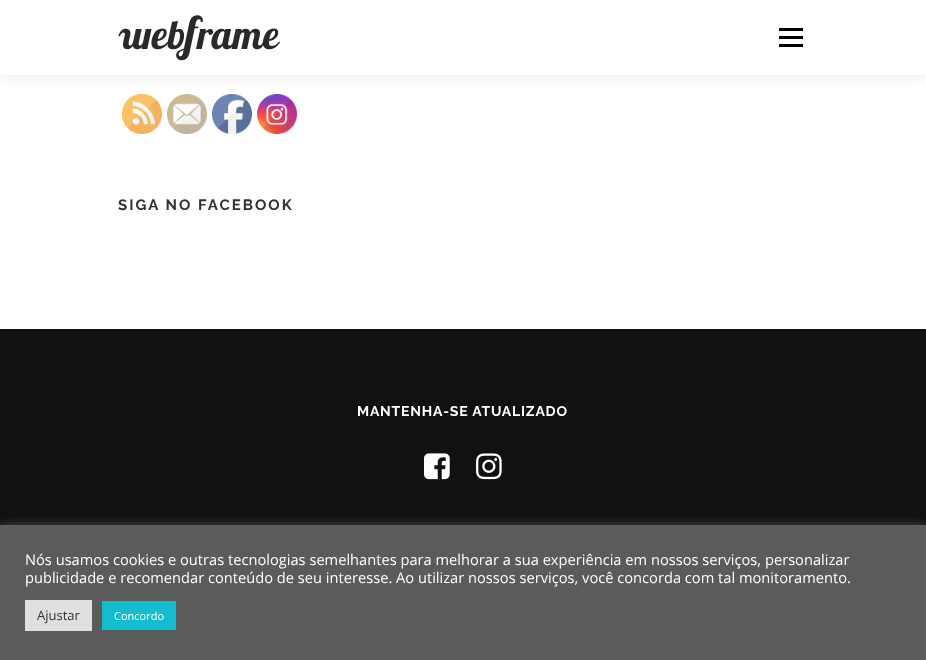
<svg xmlns="http://www.w3.org/2000/svg" width="926" height="660" viewBox="0 0 926 660">
  <rect width="100%" height="100%" fill="rgb(255,255,255)"/>
  <image x="122" y="94" width="40" height="40" href="pic2.png"/>
  <image x="167" y="94" width="40" height="40" href="pic3.png"/>
  <image x="212" y="94" width="40" height="40" href="pic4.png"/>
  <image x="257" y="94" width="40" height="40" href="pic5.png"/>
  <rect x="0" y="5" width="926" height="75" fill="rgba(50,50,50,0.06)" filter="blur(5px)"/>
  <rect x="0" y="1" width="926" height="74" fill="rgb(255,255,255)"/>
  <image x="118" y="15" width="162" height="46" href="pic1.png"/>
  <rect x="779" y="36" width="24" height="3" fill="rgb(0,0,0)"/>
  <rect x="779" y="28" width="24" height="3" fill="rgb(0,0,0)"/>
  <rect x="779" y="44" width="24" height="3" fill="rgb(0,0,0)"/>
  <text x="118" y="210" font-family="Raleway" font-size="15" font-weight="bold" letter-spacing="2" fill="rgb(51,51,51)">SIGA NO FACEBOOK</text>
  <rect x="0" y="329" width="926" height="196" fill="rgb(17,17,17)"/>
  <text x="357" y="416" font-family="Raleway" font-size="14" font-weight="bold" letter-spacing="0.8" fill="rgb(255,255,255)">MANTENHA-SE ATUALIZADO</text>
  <image x="424" y="453" width="26" height="27" href="pic6.png"/>
  <image x="476" y="453" width="26" height="27" href="pic7.png"/>
  <rect x="0" y="524" width="926" height="135" fill="rgba(172,171,171,0.3)" filter="blur(5px)"/>
  <rect x="0" y="525" width="926" height="135" fill="rgb(91,91,91)"/>
  <g font-family="Open Sans" font-size="14.67" fill="rgb(255,255,255)">
    <text>
      <tspan x="25" y="565">Nós usamos cookies e outras tecnologias semelhantes para melhorar a sua experiência em nossos serviços, personalizar</tspan>
      <tspan x="25" y="583">publicidade e recomendar conteúdo de seu interesse. Ao utilizar nossos serviços, você concorda com tal monitoramento.</tspan>
    </text>
  </g>
  <rect x="25" y="600" width="67" height="31" fill="rgb(222,223,224)"/>
  <text x="37" y="620" font-family="Open Sans" font-size="13" fill="rgb(51,51,51)">Ajustar</text>
  <rect x="102" y="601" width="74" height="29" fill="rgb(18,190,206)"/>
  <text x="114" y="620" font-family="Open Sans" font-size="11" fill="rgb(255,255,255)">Concordo</text>
</svg>
